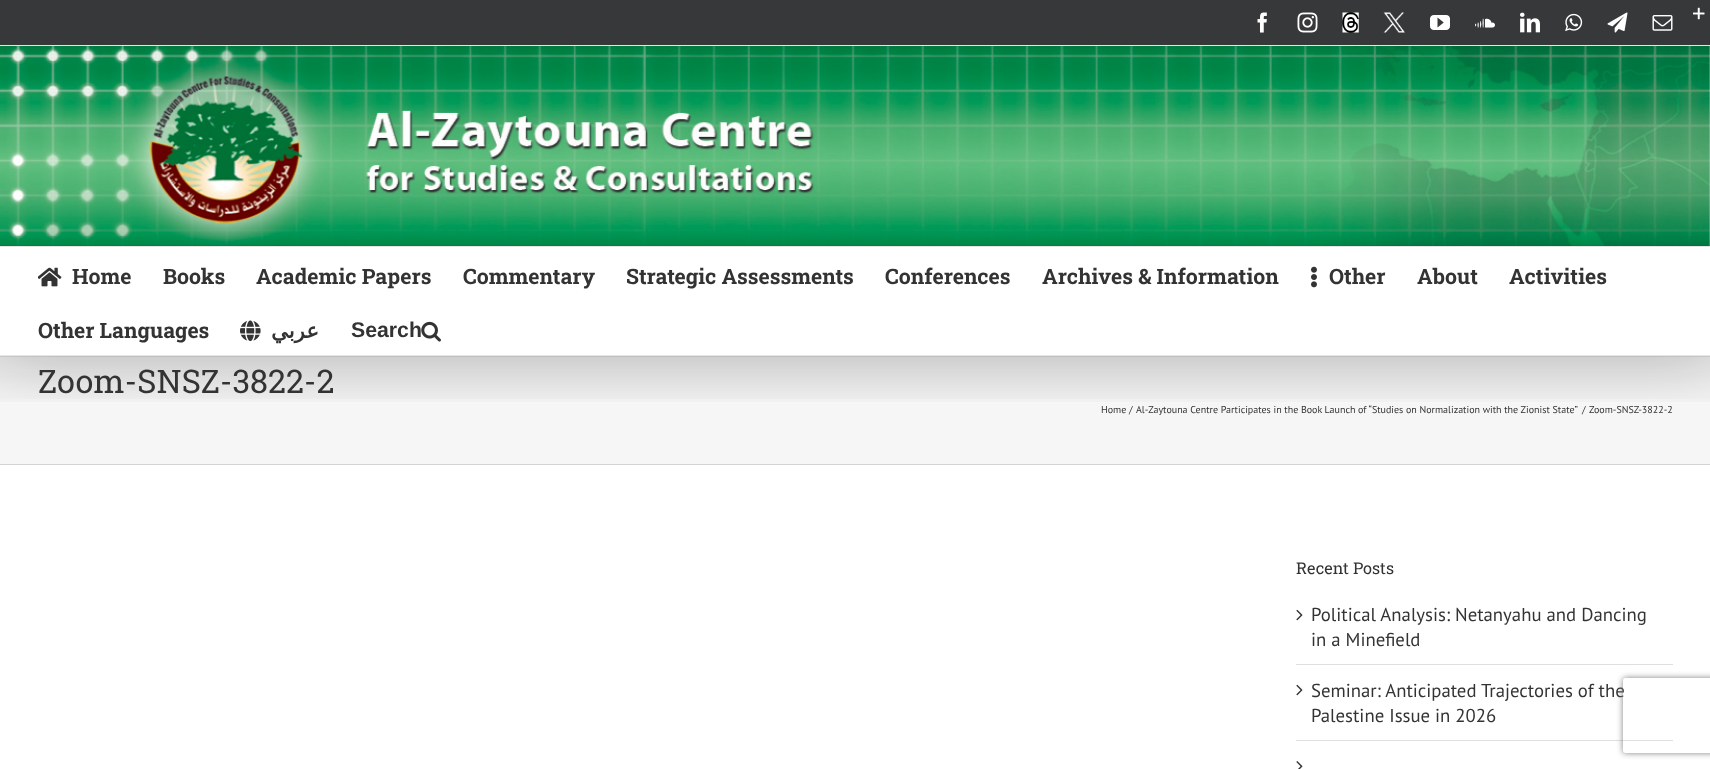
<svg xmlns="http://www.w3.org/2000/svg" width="1710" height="769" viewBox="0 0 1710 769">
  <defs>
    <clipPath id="clip1"><rect x="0" y="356" width="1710" height="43"/></clipPath>
    <clipPath id="clip2"><path d="M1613 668H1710V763H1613ZM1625.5 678H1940.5C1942 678 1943 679 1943 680.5V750.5C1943 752 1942 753 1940.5 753H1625.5C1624 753 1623 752 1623 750.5V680.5C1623 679 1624 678 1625.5 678Z" clip-rule="evenodd"/></clipPath>
  </defs>
  <rect width="100%" height="100%" fill="rgb(255,255,255)"/>
  <rect x="0" y="402" width="1710" height="62" fill="rgb(246,246,246)"/>
  <image x="0" y="357" width="1710" height="45" href="pic17.png"/>
  <rect x="0" y="356" width="1710" height="1" fill="rgb(210,211,212)"/>
  <g clip-path="url(#clip1)">
    <rect x="3" y="15" width="1705" height="351" fill="rgba(0,0,0,0.14)" filter="blur(31px)"/>
  </g>
  <rect x="0" y="0" width="1710" height="45" fill="rgb(54,56,57)"/>
  <image x="1693" y="7" width="12" height="13" href="pic1.png"/>
  <rect x="0" y="45" width="1710" height="1" fill="rgb(229,229,229)"/>
  <image x="1257" y="12" width="10" height="21" href="pic2.png"/>
  <image x="1297" y="12" width="21" height="21" href="pic3.png"/>
  <image x="1342" y="12" width="17" height="21" href="pic4.png"/>
  <image x="1383" y="12" width="22" height="21" href="pic5.png"/>
  <image x="1430" y="15" width="20" height="15" href="pic6.png"/>
  <image x="1475" y="18" width="20" height="10" href="pic7.png"/>
  <image x="1520" y="12" width="20" height="21" href="pic8.png"/>
  <image x="1565" y="13" width="18" height="19" href="pic9.png"/>
  <image x="1607" y="12" width="21" height="21" href="pic10.png"/>
  <image x="1652" y="15" width="21" height="16" href="pic11.png"/>
  <image x="0" y="46" width="1710" height="200" href="pic12.png"/>
  <rect x="0" y="246" width="1710" height="1" fill="rgb(229,229,229)"/>
  <rect x="0" y="355" width="1710" height="1" fill="rgb(229,229,229)"/>
  <image x="38" y="267" width="24" height="20" href="pic13.png"/>
  <g font-family="Roboto Slab" font-size="21.25" font-weight="bold" fill="rgb(51,51,51)">
    <text x="72" y="284">Home</text>
    <text x="163" y="284">Books</text>
    <text x="256" y="284">Academic Papers</text>
    <text x="463" y="284">Commentary</text>
    <text x="626" y="284">Strategic Assessments</text>
    <text x="885" y="284">Conferences</text>
    <text x="1042" y="284">Archives &amp; Information</text>
  </g>
  <image x="1311" y="266" width="6" height="22" href="pic14.png"/>
  <g font-family="Roboto Slab" font-size="21.25" font-weight="bold" fill="rgb(51,51,51)">
    <text x="1329" y="284">Other</text>
    <text x="1417" y="284">About</text>
    <text x="1509" y="284">Activities</text>
    <text x="38" y="338">Other Languages</text>
  </g>
  <image x="240" y="320" width="21" height="22" href="pic15.png"/>
  <text x="319" y="338" font-family="DejaVu Sans" font-size="21.25" font-weight="bold" direction="rtl" fill="rgb(51,51,51)">عربي</text>
  <text x="351" y="337" font-family="Liberation Sans" font-size="21.25" font-weight="bold" fill="rgb(51,51,51)">Search</text>
  <image x="421" y="321" width="20" height="21" href="pic16.png"/>
  <rect x="0" y="464" width="1710" height="1" fill="rgb(210,211,212)"/>
  <text x="38" y="393" font-family="Roboto Slab" font-size="32.5" fill="rgb(51,51,51)">Zoom-SNSZ-3822-2</text>
  <g font-family="PT Sans" font-size="10" fill="rgb(51,51,51)">
    <text x="1101" y="413">Home</text>
    <text x="1129" y="413">/</text>
    <text x="1136" y="413">Al-Zaytouna Centre Participates in the Book Launch of “Studies on Normalization with the Zionist State”</text>
    <text x="1582" y="413">/</text>
    <text x="1589" y="413">Zoom-SNSZ-3822-2</text>
  </g>
  <text x="1296" y="574" font-family="Roboto Slab" font-size="16.25" fill="rgb(51,51,51)">Recent Posts</text>
  <rect x="1296" y="664" width="377" height="1" fill="rgb(224,222,222)"/>
  <image x="1296" y="609" width="7" height="12" href="pic18.png"/>
  <g font-family="PT Sans" font-size="18.75" fill="rgb(51,51,51)">
    <text>
      <tspan x="1311" y="621">Political Analysis: Netanyahu and Dancing</tspan>
      <tspan x="1311" y="646">in a Minefield</tspan>
    </text>
  </g>
  <rect x="1296" y="740" width="377" height="1" fill="rgb(224,222,222)"/>
  <image x="1296" y="684" width="7" height="12" href="pic18.png"/>
  <g font-family="PT Sans" font-size="18.75" fill="rgb(51,51,51)">
    <text>
      <tspan x="1311" y="697">Seminar: Anticipated Trajectories of the</tspan>
      <tspan x="1311" y="722">Palestine Issue in 2026</tspan>
    </text>
  </g>
  <image x="1296" y="761" width="7" height="8" href="pic19.png"/>
  <g clip-path="url(#clip2)">
    <rect x="1623" y="678" width="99" height="75" rx="2.5" fill="rgb(128,128,128)" filter="blur(3px)"/>
  </g>
</svg>
